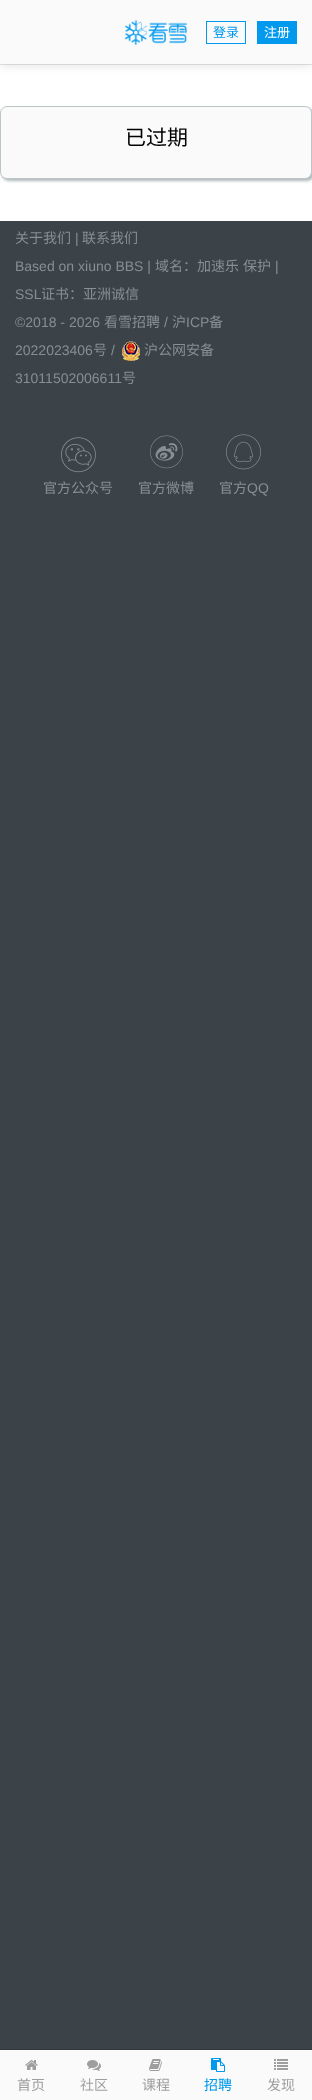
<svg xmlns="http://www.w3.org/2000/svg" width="312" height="2100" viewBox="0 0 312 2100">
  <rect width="100%" height="100%" fill="rgb(59,67,72)"/>
  <rect x="0" y="64" width="312" height="1" fill="rgb(230,230,230)"/>
  <rect x="0" y="65" width="312" height="156" fill="rgb(255,255,255)"/>
  <rect x="0" y="2" width="312" height="64" fill="rgba(0,0,0,0.1)" filter="blur(5px)"/>
  <rect x="0" y="0" width="312" height="64" fill="rgb(250,250,250)"/>
  <image x="124" y="20" width="64" height="25" href="pic1.png"/>
  <rect x="206.5" y="21.5" width="39" height="22" fill="none" stroke="rgb(0,153,238)"/>
  <text x="213" y="37" font-family="Noto Sans CJK SC" font-size="13" fill="rgb(0,153,238)">登录</text>
  <rect x="257" y="21" width="40" height="23" fill="rgb(0,153,238)"/>
  <text x="264" y="37" font-family="Noto Sans CJK SC" font-size="13" fill="rgb(255,255,255)">注册</text>
  <rect x="2" y="108" width="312" height="73" rx="7" fill="rgb(174,184,185)" filter="blur(1.5px)"/>
  <rect x="0.5" y="106.5" width="311" height="72" rx="6.5" fill="rgb(250,250,250)" stroke="rgb(188,198,201)"/>
  <text x="125" y="145" font-family="Noto Sans CJK SC" font-size="21" fill="rgb(0,0,0)">已过期</text>
  <text x="15" y="243" font-family="Noto Sans CJK SC" font-size="14" fill="rgb(134,142,150)">关于我们</text>
  <text x="75" y="243" font-family="Liberation Sans" font-size="14" fill="rgb(134,142,150)">|</text>
  <text x="82" y="243" font-family="Noto Sans CJK SC" font-size="14" fill="rgb(134,142,150)">联系我们</text>
  <text x="15" y="271" font-family="Liberation Sans" font-size="14" fill="rgb(134,142,150)">Based on xiuno BBS |</text>
  <g font-family="Noto Sans CJK SC" font-size="14" fill="rgb(134,142,150)">
    <text x="155" y="271">域名：加速乐</text>
    <text x="243" y="271">保护</text>
  </g>
  <g font-family="Liberation Sans" font-size="14" fill="rgb(134,142,150)">
    <text x="275" y="271">|</text>
    <text x="15" y="299">SSL</text>
  </g>
  <text x="41" y="299" font-family="Noto Sans CJK SC" font-size="14" fill="rgb(134,142,150)">证书：亚洲诚信</text>
  <text x="15" y="327" font-family="Liberation Sans" font-size="14" fill="rgb(134,142,150)">©2018 - 2026</text>
  <text x="104" y="327" font-family="Noto Sans CJK SC" font-size="14" fill="rgb(134,142,150)">看雪招聘</text>
  <text x="164" y="327" font-family="Liberation Sans" font-size="14" fill="rgb(134,142,150)">/</text>
  <text x="172" y="327" font-family="Noto Sans CJK SC" font-size="14" fill="rgb(134,142,150)">沪</text>
  <text x="186" y="327" font-family="Liberation Sans" font-size="14" fill="rgb(134,142,150)">ICP</text>
  <text x="209" y="327" font-family="Noto Sans CJK SC" font-size="14" fill="rgb(134,142,150)">备</text>
  <text x="15" y="355" font-family="Liberation Sans" font-size="14" fill="rgb(134,142,150)">2022023406</text>
  <text x="93" y="355" font-family="Noto Sans CJK SC" font-size="14" fill="rgb(134,142,150)">号</text>
  <text x="111" y="355" font-family="Liberation Sans" font-size="14" fill="rgb(134,142,150)">/</text>
  <image x="122" y="341" width="18" height="20" href="pic2.png"/>
  <text x="144" y="355" font-family="Noto Sans CJK SC" font-size="14" fill="rgb(134,142,150)">沪公网安备</text>
  <text x="15" y="383" font-family="Liberation Sans" font-size="14" fill="rgb(134,142,150)">31011502006611</text>
  <text x="122" y="383" font-family="Noto Sans CJK SC" font-size="14" fill="rgb(134,142,150)">号</text>
  <image x="61" y="437" width="35" height="36" href="pic3.png"/>
  <text x="43" y="493" font-family="Noto Sans CJK SC" font-size="14" fill="rgb(134,142,150)">官方公众号</text>
  <image x="150" y="435" width="33" height="34" href="pic4.png"/>
  <text x="138" y="493" font-family="Noto Sans CJK SC" font-size="14" fill="rgb(134,142,150)">官方微博</text>
  <image x="226" y="434" width="35" height="36" href="pic5.png"/>
  <text x="219" y="493" font-family="Noto Sans CJK SC" font-size="14" fill="rgb(134,142,150)">官方</text>
  <text x="247" y="493" font-family="Liberation Sans" font-size="14" fill="rgb(134,142,150)">QQ</text>
  <rect x="0" y="2049" width="312" height="1" fill="rgb(50,57,61)"/>
  <rect x="0" y="2050" width="312" height="50" fill="rgb(250,250,250)"/>
  <image x="25" y="2060" width="13" height="10" href="pic6.png"/>
  <text x="17" y="2090" font-family="Noto Sans CJK SC" font-size="14" fill="rgb(158,158,158)">首页</text>
  <image x="87" y="2060" width="14" height="11" href="pic7.png"/>
  <text x="80" y="2090" font-family="Noto Sans CJK SC" font-size="14" fill="rgb(158,158,158)">社区</text>
  <image x="149" y="2059" width="13" height="12" href="pic8.png"/>
  <text x="142" y="2090" font-family="Noto Sans CJK SC" font-size="14" fill="rgb(158,158,158)">课程</text>
  <image x="211" y="2058" width="14" height="14" href="pic9.png"/>
  <text x="204" y="2090" font-family="Noto Sans CJK SC" font-size="14" fill="rgb(0,153,238)">招聘</text>
  <image x="274" y="2059" width="14" height="11" href="pic10.png"/>
  <text x="267" y="2090" font-family="Noto Sans CJK SC" font-size="14" fill="rgb(158,158,158)">发现</text>
</svg>
